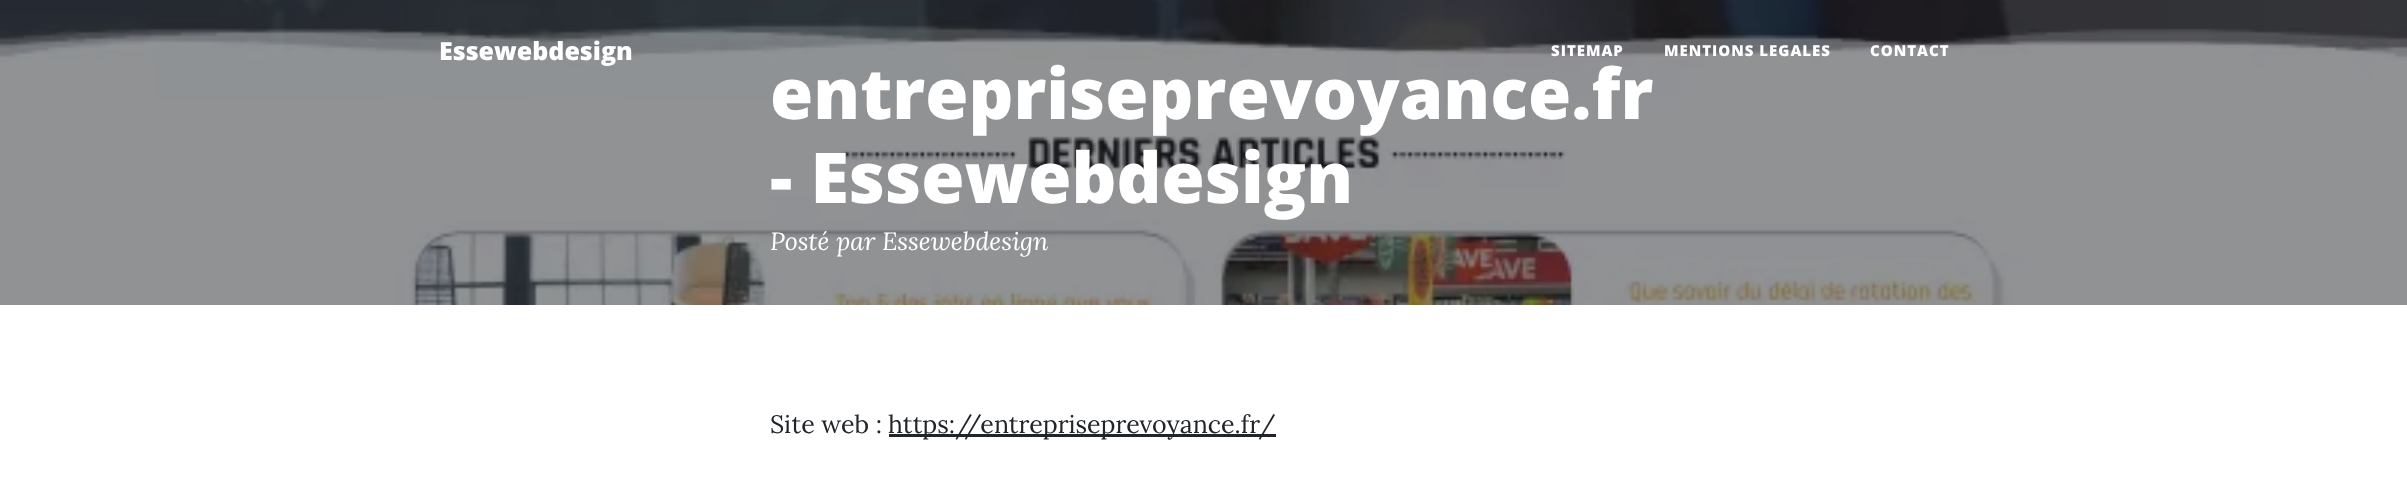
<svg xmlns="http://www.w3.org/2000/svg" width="2407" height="483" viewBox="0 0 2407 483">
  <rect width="100%" height="100%" fill="rgb(255,255,255)"/>
  <image x="0" y="0" width="2407" height="305" href="pic1.png"/>
  <text x="439" y="60" font-family="Open Sans" font-size="25" font-weight="800" fill="rgb(255,255,255)">Essewebdesign</text>
  <g font-family="Open Sans" font-size="15" font-weight="800" letter-spacing="1" fill="rgb(255,255,255)">
    <text x="1551" y="56">SITEMAP</text>
    <text x="1664" y="56">MENTIONS LEGALES</text>
    <text x="1870" y="56">CONTACT</text>
  </g>
  <g font-family="Open Sans" font-size="70" font-weight="800" fill="rgb(255,255,255)">
    <text>
      <tspan x="770" y="119">entrepriseprevoyance.fr</tspan>
      <tspan x="770" y="203">- Essewebdesign</tspan>
    </text>
  </g>
  <text x="770" y="250" font-family="Lora" font-size="25" font-style="italic" fill="rgb(255,255,255)">Posté par Essewebdesign</text>
  <text x="770" y="433" font-family="Lora" font-size="25" fill="rgb(33,37,41)">Site web :</text>
  <rect x="889" y="434" width="387" height="3" fill="rgb(33,37,41)"/>
  <text x="888" y="433" font-family="Lora" font-size="25" fill="rgb(33,37,41)">https://entrepriseprevoyance.fr/</text>
</svg>
